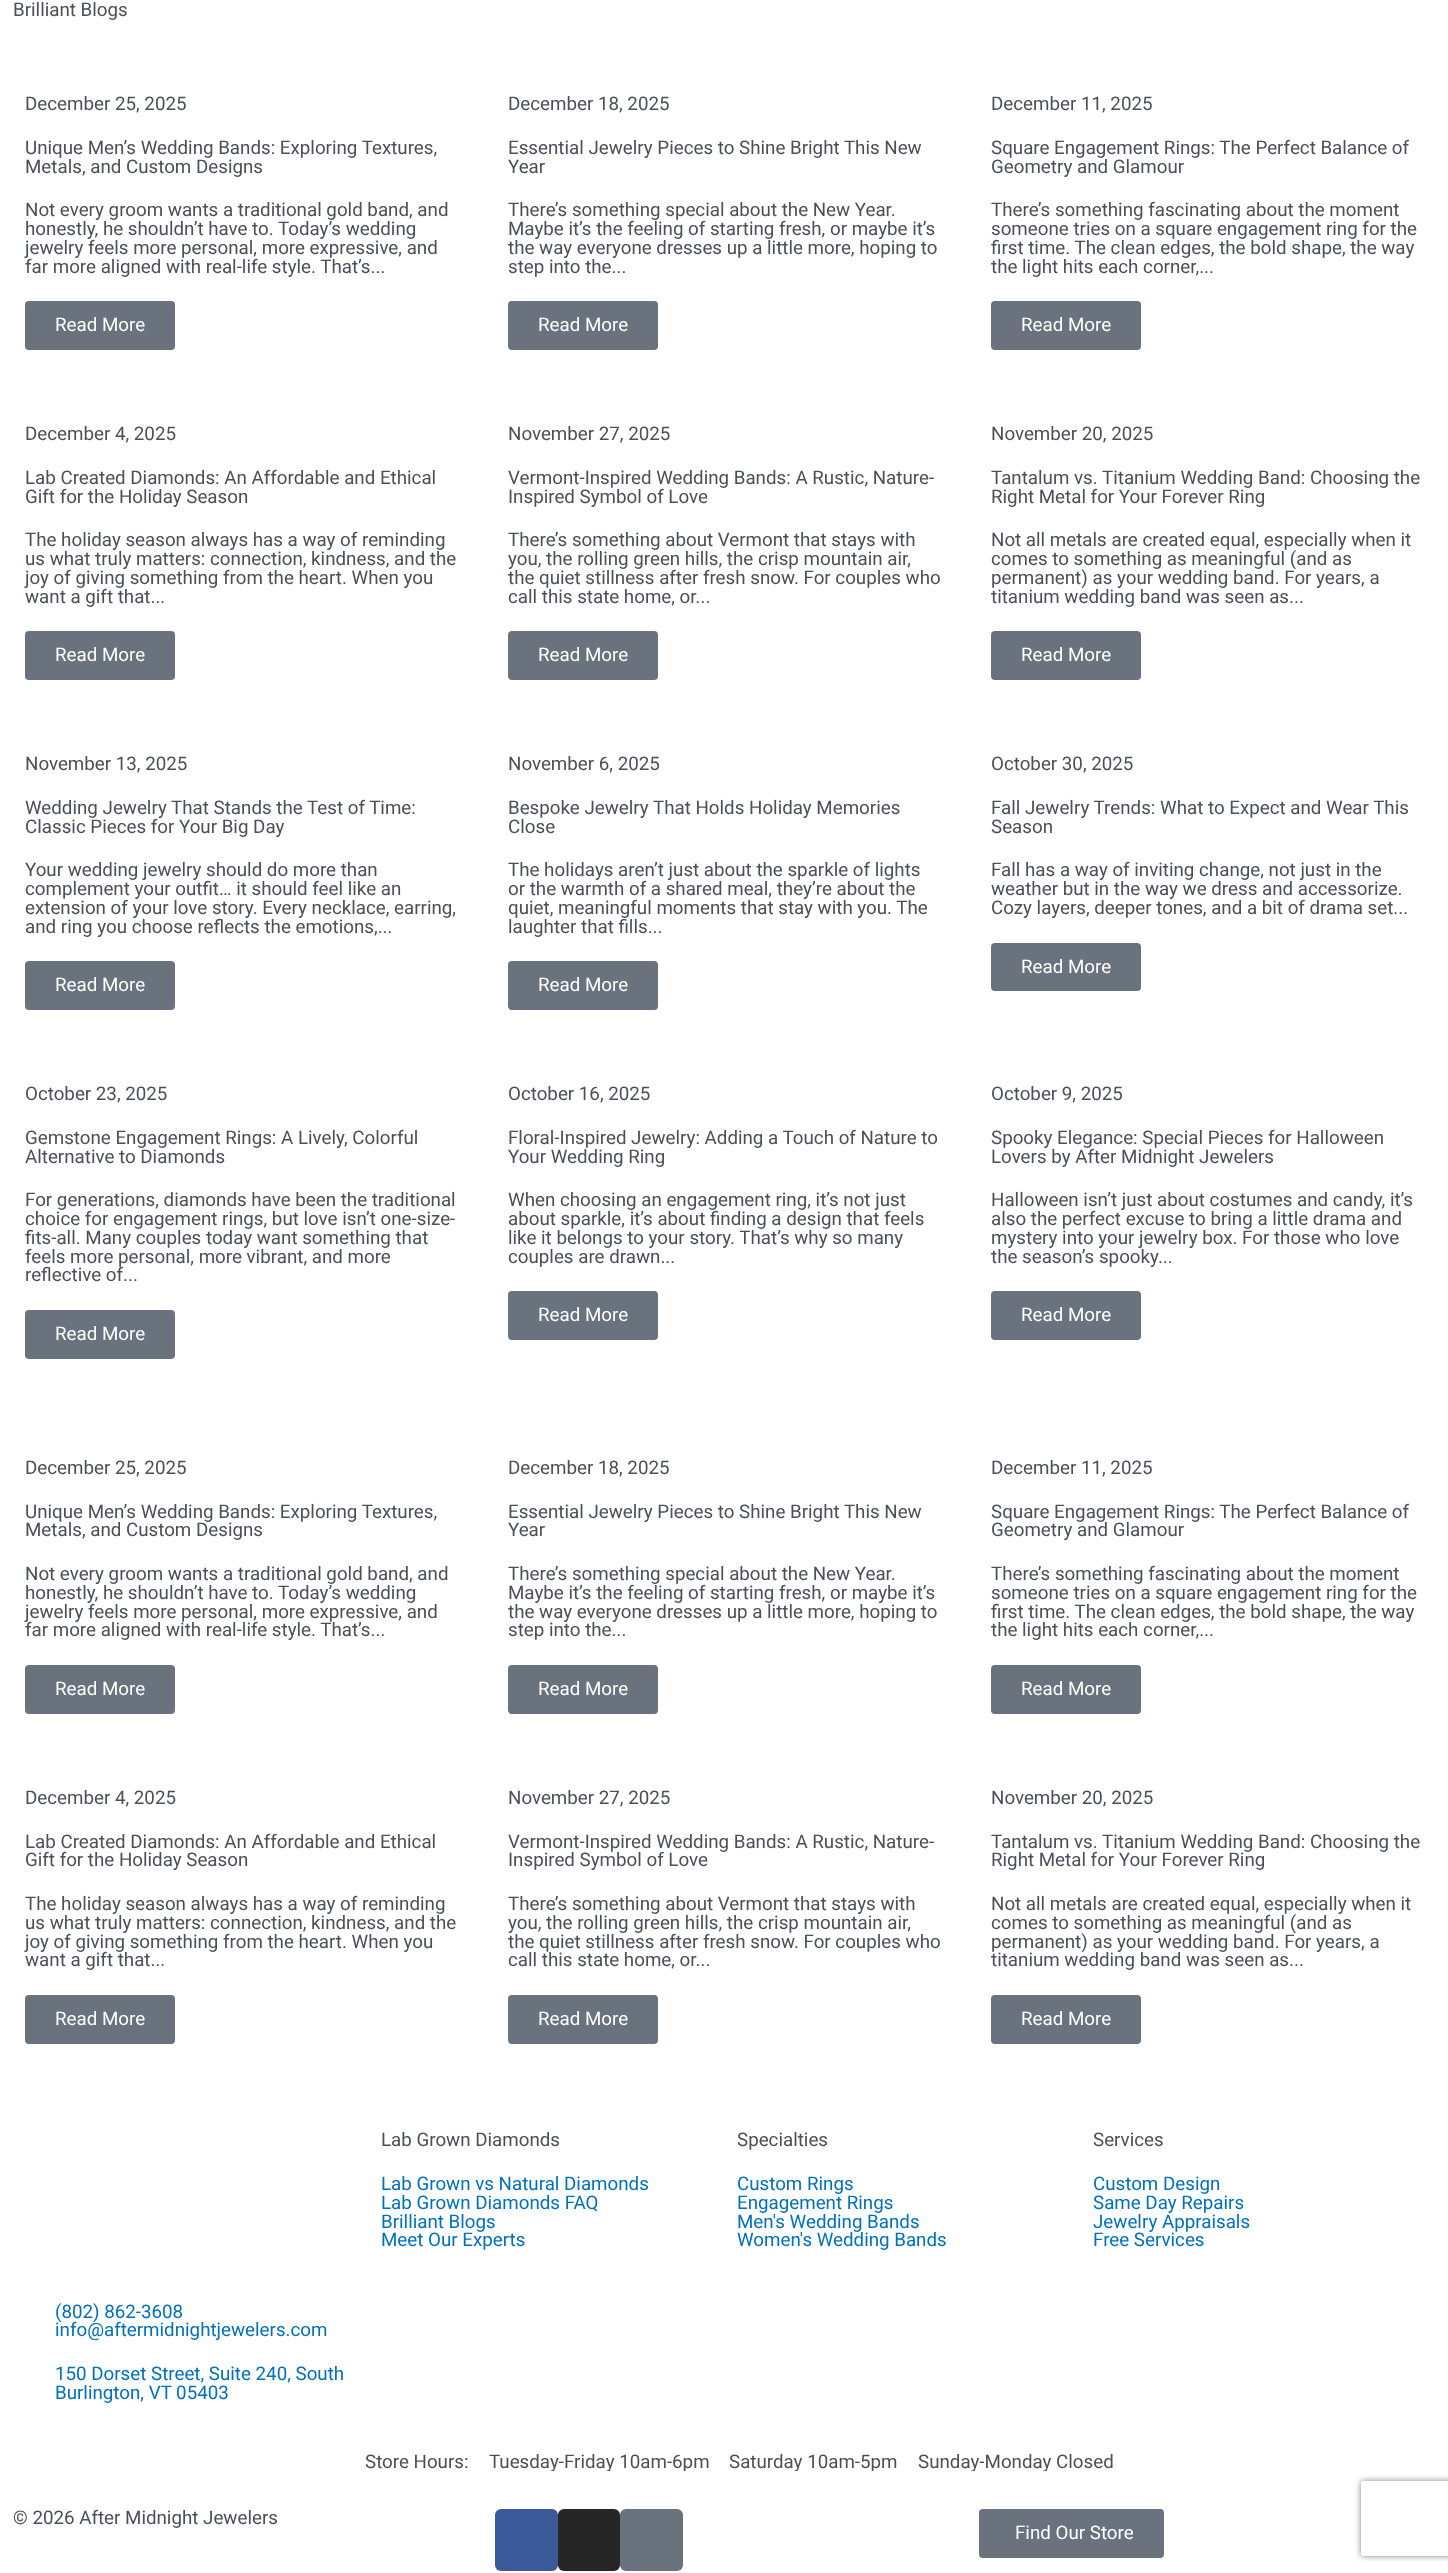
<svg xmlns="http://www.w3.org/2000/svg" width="1448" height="2573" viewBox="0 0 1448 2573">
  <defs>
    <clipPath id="clip1"><rect x="25" y="2453" width="1399" height="18"/></clipPath>
    <clipPath id="clip2"><path d="M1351 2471H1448V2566H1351ZM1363.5 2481H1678.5C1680 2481 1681 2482 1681 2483.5V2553.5C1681 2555 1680 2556 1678.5 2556H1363.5C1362 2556 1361 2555 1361 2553.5V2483.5C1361 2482 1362 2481 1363.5 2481Z" clip-rule="evenodd"/></clipPath>
  </defs>
  <rect width="100%" height="100%" fill="rgb(255,255,255)"/>
  <g font-family="Roboto" font-size="18.75" fill="rgb(75,79,88)">
    <text x="13" y="16">Brilliant Blogs</text>
    <text x="25" y="110">December 25, 2025</text>
    <text>
      <tspan x="25" y="154">Unique Men’s Wedding Bands: Exploring Textures,</tspan>
      <tspan x="25" y="173">Metals, and Custom Designs</tspan>
    </text>
    <text>
      <tspan x="25" y="216">Not every groom wants a traditional gold band, and</tspan>
      <tspan x="25" y="235">honestly, he shouldn’t have to. Today’s wedding</tspan>
      <tspan x="25" y="254">jewelry feels more personal, more expressive, and</tspan>
      <tspan x="25" y="273">far more aligned with real-life style. That’s...</tspan>
    </text>
  </g>
  <rect x="25" y="301" width="150" height="49" rx="4" fill="rgb(105,114,125)"/>
  <text x="55" y="331" font-family="Roboto" font-size="18.75" fill="rgb(255,255,255)">Read More</text>
  <g font-family="Roboto" font-size="18.75" fill="rgb(75,79,88)">
    <text x="508" y="110">December 18, 2025</text>
    <text>
      <tspan x="508" y="154">Essential Jewelry Pieces to Shine Bright This New</tspan>
      <tspan x="508" y="173">Year</tspan>
    </text>
    <text>
      <tspan x="508" y="216">There’s something special about the New Year.</tspan>
      <tspan x="508" y="235">Maybe it’s the feeling of starting fresh, or maybe it’s</tspan>
      <tspan x="508" y="254">the way everyone dresses up a little more, hoping to</tspan>
      <tspan x="508" y="273">step into the...</tspan>
    </text>
  </g>
  <rect x="508" y="301" width="150" height="49" rx="4" fill="rgb(105,114,125)"/>
  <text x="538" y="331" font-family="Roboto" font-size="18.75" fill="rgb(255,255,255)">Read More</text>
  <g font-family="Roboto" font-size="18.75" fill="rgb(75,79,88)">
    <text x="991" y="110">December 11, 2025</text>
    <text>
      <tspan x="991" y="154">Square Engagement Rings: The Perfect Balance of</tspan>
      <tspan x="991" y="173">Geometry and Glamour</tspan>
    </text>
    <text>
      <tspan x="991" y="216">There’s something fascinating about the moment</tspan>
      <tspan x="991" y="235">someone tries on a square engagement ring for the</tspan>
      <tspan x="991" y="254">first time. The clean edges, the bold shape, the way</tspan>
      <tspan x="991" y="273">the light hits each corner,...</tspan>
    </text>
  </g>
  <rect x="991" y="301" width="150" height="49" rx="4" fill="rgb(105,114,125)"/>
  <text x="1021" y="331" font-family="Roboto" font-size="18.75" fill="rgb(255,255,255)">Read More</text>
  <g font-family="Roboto" font-size="18.75" fill="rgb(75,79,88)">
    <text x="25" y="440">December 4, 2025</text>
    <text>
      <tspan x="25" y="484">Lab Created Diamonds: An Affordable and Ethical</tspan>
      <tspan x="25" y="503">Gift for the Holiday Season</tspan>
    </text>
    <text>
      <tspan x="25" y="546">The holiday season always has a way of reminding</tspan>
      <tspan x="25" y="565">us what truly matters: connection, kindness, and the</tspan>
      <tspan x="25" y="584">joy of giving something from the heart. When you</tspan>
      <tspan x="25" y="603">want a gift that...</tspan>
    </text>
  </g>
  <rect x="25" y="631" width="150" height="49" rx="4" fill="rgb(105,114,125)"/>
  <text x="55" y="661" font-family="Roboto" font-size="18.75" fill="rgb(255,255,255)">Read More</text>
  <g font-family="Roboto" font-size="18.75" fill="rgb(75,79,88)">
    <text x="508" y="440">November 27, 2025</text>
    <text>
      <tspan x="508" y="484">Vermont-Inspired Wedding Bands: A Rustic, Nature-</tspan>
      <tspan x="508" y="503">Inspired Symbol of Love</tspan>
    </text>
    <text>
      <tspan x="508" y="546">There’s something about Vermont that stays with</tspan>
      <tspan x="508" y="565">you, the rolling green hills, the crisp mountain air,</tspan>
      <tspan x="508" y="584">the quiet stillness after fresh snow. For couples who</tspan>
      <tspan x="508" y="603">call this state home, or...</tspan>
    </text>
  </g>
  <rect x="508" y="631" width="150" height="49" rx="4" fill="rgb(105,114,125)"/>
  <text x="538" y="661" font-family="Roboto" font-size="18.75" fill="rgb(255,255,255)">Read More</text>
  <g font-family="Roboto" font-size="18.75" fill="rgb(75,79,88)">
    <text x="991" y="440">November 20, 2025</text>
    <text>
      <tspan x="991" y="484">Tantalum vs. Titanium Wedding Band: Choosing the</tspan>
      <tspan x="991" y="503">Right Metal for Your Forever Ring</tspan>
    </text>
    <text>
      <tspan x="991" y="546">Not all metals are created equal, especially when it</tspan>
      <tspan x="991" y="565">comes to something as meaningful (and as</tspan>
      <tspan x="991" y="584">permanent) as your wedding band. For years, a</tspan>
      <tspan x="991" y="603">titanium wedding band was seen as...</tspan>
    </text>
  </g>
  <rect x="991" y="631" width="150" height="49" rx="4" fill="rgb(105,114,125)"/>
  <text x="1021" y="661" font-family="Roboto" font-size="18.75" fill="rgb(255,255,255)">Read More</text>
  <g font-family="Roboto" font-size="18.75" fill="rgb(75,79,88)">
    <text x="25" y="770">November 13, 2025</text>
    <text>
      <tspan x="25" y="814">Wedding Jewelry That Stands the Test of Time:</tspan>
      <tspan x="25" y="833">Classic Pieces for Your Big Day</tspan>
    </text>
    <text>
      <tspan x="25" y="876">Your wedding jewelry should do more than</tspan>
      <tspan x="25" y="895">complement your outfit… it should feel like an</tspan>
      <tspan x="25" y="914">extension of your love story. Every necklace, earring,</tspan>
      <tspan x="25" y="933">and ring you choose reflects the emotions,...</tspan>
    </text>
  </g>
  <rect x="25" y="961" width="150" height="49" rx="4" fill="rgb(105,114,125)"/>
  <text x="55" y="991" font-family="Roboto" font-size="18.75" fill="rgb(255,255,255)">Read More</text>
  <g font-family="Roboto" font-size="18.75" fill="rgb(75,79,88)">
    <text x="508" y="770">November 6, 2025</text>
    <text>
      <tspan x="508" y="814">Bespoke Jewelry That Holds Holiday Memories</tspan>
      <tspan x="508" y="833">Close</tspan>
    </text>
    <text>
      <tspan x="508" y="876">The holidays aren’t just about the sparkle of lights</tspan>
      <tspan x="508" y="895">or the warmth of a shared meal, they’re about the</tspan>
      <tspan x="508" y="914">quiet, meaningful moments that stay with you. The</tspan>
      <tspan x="508" y="933">laughter that fills...</tspan>
    </text>
  </g>
  <rect x="508" y="961" width="150" height="49" rx="4" fill="rgb(105,114,125)"/>
  <text x="538" y="991" font-family="Roboto" font-size="18.75" fill="rgb(255,255,255)">Read More</text>
  <g font-family="Roboto" font-size="18.75" fill="rgb(75,79,88)">
    <text x="991" y="770">October 30, 2025</text>
    <text>
      <tspan x="991" y="814">Fall Jewelry Trends: What to Expect and Wear This</tspan>
      <tspan x="991" y="833">Season</tspan>
    </text>
    <text>
      <tspan x="991" y="876">Fall has a way of inviting change, not just in the</tspan>
      <tspan x="991" y="895">weather but in the way we dress and accessorize.</tspan>
      <tspan x="991" y="914">Cozy layers, deeper tones, and a bit of drama set...</tspan>
    </text>
  </g>
  <rect x="991" y="943" width="150" height="48" rx="4" fill="rgb(105,114,125)"/>
  <text x="1021" y="973" font-family="Roboto" font-size="18.75" fill="rgb(255,255,255)">Read More</text>
  <g font-family="Roboto" font-size="18.75" fill="rgb(75,79,88)">
    <text x="25" y="1100">October 23, 2025</text>
    <text>
      <tspan x="25" y="1144">Gemstone Engagement Rings: A Lively, Colorful</tspan>
      <tspan x="25" y="1163">Alternative to Diamonds</tspan>
    </text>
    <text>
      <tspan x="25" y="1206">For generations, diamonds have been the traditional</tspan>
      <tspan x="25" y="1225">choice for engagement rings, but love isn’t one-size-</tspan>
      <tspan x="25" y="1244">fits-all. Many couples today want something that</tspan>
      <tspan x="25" y="1263">feels more personal, more vibrant, and more</tspan>
      <tspan x="25" y="1281">reflective of...</tspan>
    </text>
  </g>
  <rect x="25" y="1310" width="150" height="49" rx="4" fill="rgb(105,114,125)"/>
  <text x="55" y="1340" font-family="Roboto" font-size="18.75" fill="rgb(255,255,255)">Read More</text>
  <g font-family="Roboto" font-size="18.75" fill="rgb(75,79,88)">
    <text x="508" y="1100">October 16, 2025</text>
    <text>
      <tspan x="508" y="1144">Floral-Inspired Jewelry: Adding a Touch of Nature to</tspan>
      <tspan x="508" y="1163">Your Wedding Ring</tspan>
    </text>
    <text>
      <tspan x="508" y="1206">When choosing an engagement ring, it’s not just</tspan>
      <tspan x="508" y="1225">about sparkle, it’s about finding a design that feels</tspan>
      <tspan x="508" y="1244">like it belongs to your story. That’s why so many</tspan>
      <tspan x="508" y="1263">couples are drawn...</tspan>
    </text>
  </g>
  <rect x="508" y="1291" width="150" height="49" rx="4" fill="rgb(105,114,125)"/>
  <text x="538" y="1321" font-family="Roboto" font-size="18.75" fill="rgb(255,255,255)">Read More</text>
  <g font-family="Roboto" font-size="18.75" fill="rgb(75,79,88)">
    <text x="991" y="1100">October 9, 2025</text>
    <text>
      <tspan x="991" y="1144">Spooky Elegance: Special Pieces for Halloween</tspan>
      <tspan x="991" y="1163">Lovers by After Midnight Jewelers</tspan>
    </text>
    <text>
      <tspan x="991" y="1206">Halloween isn’t just about costumes and candy, it’s</tspan>
      <tspan x="991" y="1225">also the perfect excuse to bring a little drama and</tspan>
      <tspan x="991" y="1244">mystery into your jewelry box. For those who love</tspan>
      <tspan x="991" y="1263">the season’s spooky...</tspan>
    </text>
  </g>
  <rect x="991" y="1291" width="150" height="49" rx="4" fill="rgb(105,114,125)"/>
  <text x="1021" y="1321" font-family="Roboto" font-size="18.75" fill="rgb(255,255,255)">Read More</text>
  <g font-family="Roboto" font-size="18.75" fill="rgb(75,79,88)">
    <text x="25" y="1474">December 25, 2025</text>
    <text>
      <tspan x="25" y="1518">Unique Men’s Wedding Bands: Exploring Textures,</tspan>
      <tspan x="25" y="1536">Metals, and Custom Designs</tspan>
    </text>
    <text>
      <tspan x="25" y="1580">Not every groom wants a traditional gold band, and</tspan>
      <tspan x="25" y="1599">honestly, he shouldn’t have to. Today’s wedding</tspan>
      <tspan x="25" y="1618">jewelry feels more personal, more expressive, and</tspan>
      <tspan x="25" y="1636">far more aligned with real-life style. That’s...</tspan>
    </text>
  </g>
  <rect x="25" y="1665" width="150" height="49" rx="4" fill="rgb(105,114,125)"/>
  <text x="55" y="1695" font-family="Roboto" font-size="18.75" fill="rgb(255,255,255)">Read More</text>
  <g font-family="Roboto" font-size="18.75" fill="rgb(75,79,88)">
    <text x="508" y="1474">December 18, 2025</text>
    <text>
      <tspan x="508" y="1518">Essential Jewelry Pieces to Shine Bright This New</tspan>
      <tspan x="508" y="1536">Year</tspan>
    </text>
    <text>
      <tspan x="508" y="1580">There’s something special about the New Year.</tspan>
      <tspan x="508" y="1599">Maybe it’s the feeling of starting fresh, or maybe it’s</tspan>
      <tspan x="508" y="1618">the way everyone dresses up a little more, hoping to</tspan>
      <tspan x="508" y="1636">step into the...</tspan>
    </text>
  </g>
  <rect x="508" y="1665" width="150" height="49" rx="4" fill="rgb(105,114,125)"/>
  <text x="538" y="1695" font-family="Roboto" font-size="18.75" fill="rgb(255,255,255)">Read More</text>
  <g font-family="Roboto" font-size="18.75" fill="rgb(75,79,88)">
    <text x="991" y="1474">December 11, 2025</text>
    <text>
      <tspan x="991" y="1518">Square Engagement Rings: The Perfect Balance of</tspan>
      <tspan x="991" y="1536">Geometry and Glamour</tspan>
    </text>
    <text>
      <tspan x="991" y="1580">There’s something fascinating about the moment</tspan>
      <tspan x="991" y="1599">someone tries on a square engagement ring for the</tspan>
      <tspan x="991" y="1618">first time. The clean edges, the bold shape, the way</tspan>
      <tspan x="991" y="1636">the light hits each corner,...</tspan>
    </text>
  </g>
  <rect x="991" y="1665" width="150" height="49" rx="4" fill="rgb(105,114,125)"/>
  <text x="1021" y="1695" font-family="Roboto" font-size="18.75" fill="rgb(255,255,255)">Read More</text>
  <g font-family="Roboto" font-size="18.75" fill="rgb(75,79,88)">
    <text x="25" y="1804">December 4, 2025</text>
    <text>
      <tspan x="25" y="1848">Lab Created Diamonds: An Affordable and Ethical</tspan>
      <tspan x="25" y="1866">Gift for the Holiday Season</tspan>
    </text>
    <text>
      <tspan x="25" y="1910">The holiday season always has a way of reminding</tspan>
      <tspan x="25" y="1929">us what truly matters: connection, kindness, and the</tspan>
      <tspan x="25" y="1948">joy of giving something from the heart. When you</tspan>
      <tspan x="25" y="1966">want a gift that...</tspan>
    </text>
  </g>
  <rect x="25" y="1995" width="150" height="49" rx="4" fill="rgb(105,114,125)"/>
  <text x="55" y="2025" font-family="Roboto" font-size="18.75" fill="rgb(255,255,255)">Read More</text>
  <g font-family="Roboto" font-size="18.75" fill="rgb(75,79,88)">
    <text x="508" y="1804">November 27, 2025</text>
    <text>
      <tspan x="508" y="1848">Vermont-Inspired Wedding Bands: A Rustic, Nature-</tspan>
      <tspan x="508" y="1866">Inspired Symbol of Love</tspan>
    </text>
    <text>
      <tspan x="508" y="1910">There’s something about Vermont that stays with</tspan>
      <tspan x="508" y="1929">you, the rolling green hills, the crisp mountain air,</tspan>
      <tspan x="508" y="1948">the quiet stillness after fresh snow. For couples who</tspan>
      <tspan x="508" y="1966">call this state home, or...</tspan>
    </text>
  </g>
  <rect x="508" y="1995" width="150" height="49" rx="4" fill="rgb(105,114,125)"/>
  <text x="538" y="2025" font-family="Roboto" font-size="18.75" fill="rgb(255,255,255)">Read More</text>
  <g font-family="Roboto" font-size="18.75" fill="rgb(75,79,88)">
    <text x="991" y="1804">November 20, 2025</text>
    <text>
      <tspan x="991" y="1848">Tantalum vs. Titanium Wedding Band: Choosing the</tspan>
      <tspan x="991" y="1866">Right Metal for Your Forever Ring</tspan>
    </text>
    <text>
      <tspan x="991" y="1910">Not all metals are created equal, especially when it</tspan>
      <tspan x="991" y="1929">comes to something as meaningful (and as</tspan>
      <tspan x="991" y="1948">permanent) as your wedding band. For years, a</tspan>
      <tspan x="991" y="1966">titanium wedding band was seen as...</tspan>
    </text>
  </g>
  <rect x="991" y="1995" width="150" height="49" rx="4" fill="rgb(105,114,125)"/>
  <text x="1021" y="2025" font-family="Roboto" font-size="18.75" fill="rgb(255,255,255)">Read More</text>
  <text x="381" y="2146" font-family="Roboto" font-size="18.75" fill="rgb(75,79,88)">Lab Grown Diamonds</text>
  <g font-family="Roboto" font-size="18.75" fill="rgb(1,112,185)">
    <text>
      <tspan x="381" y="2190">Lab Grown vs Natural Diamonds</tspan>
      <tspan x="381" y="2209">Lab Grown Diamonds FAQ</tspan>
      <tspan x="381" y="2228">Brilliant Blogs</tspan>
      <tspan x="381" y="2246">Meet Our Experts</tspan>
    </text>
  </g>
  <text x="737" y="2146" font-family="Roboto" font-size="18.75" fill="rgb(75,79,88)">Specialties</text>
  <g font-family="Roboto" font-size="18.75" fill="rgb(1,112,185)">
    <text>
      <tspan x="737" y="2190">Custom Rings</tspan>
      <tspan x="737" y="2209">Engagement Rings</tspan>
      <tspan x="737" y="2228">Men's Wedding Bands</tspan>
      <tspan x="737" y="2246">Women's Wedding Bands</tspan>
    </text>
  </g>
  <text x="1093" y="2146" font-family="Roboto" font-size="18.75" fill="rgb(75,79,88)">Services</text>
  <g font-family="Roboto" font-size="18.75" fill="rgb(1,112,185)">
    <text>
      <tspan x="1093" y="2190">Custom Design</tspan>
      <tspan x="1093" y="2209">Same Day Repairs</tspan>
      <tspan x="1093" y="2228">Jewelry Appraisals</tspan>
      <tspan x="1093" y="2246">Free Services</tspan>
    </text>
    <text>
      <tspan x="55" y="2318">(802) 862-3608</tspan>
      <tspan x="55" y="2336">info@aftermidnightjewelers.com</tspan>
    </text>
    <text>
      <tspan x="55" y="2380">150 Dorset Street, Suite 240, South</tspan>
      <tspan x="55" y="2399">Burlington, VT 05403</tspan>
    </text>
  </g>
  <text x="365" y="2468" font-family="Roboto" font-size="18.75" fill="rgb(75,79,88)">Store Hours:</text>
  <g clip-path="url(#clip1)">
    <g font-family="Roboto" font-size="18.75" fill="rgb(75,79,88)">
      <text x="489" y="2468">Tuesday-Friday 10am-6pm</text>
      <text x="729" y="2468">Saturday 10am-5pm</text>
      <text x="918" y="2468">Sunday-Monday Closed</text>
    </g>
  </g>
  <text x="13" y="2524" font-family="Roboto" font-size="18.75" fill="rgb(75,79,88)">© 2026 After Midnight Jewelers</text>
  <rect x="495" y="2509" width="63" height="62" rx="6" fill="rgb(59,89,152)"/>
  <rect x="558" y="2509" width="62" height="62" rx="6" fill="rgb(38,38,38)"/>
  <rect x="620" y="2509" width="63" height="62" rx="6" fill="rgb(105,114,125)"/>
  <rect x="979" y="2509" width="185" height="49" rx="4" fill="rgb(105,114,125)"/>
  <text x="1015" y="2539" font-family="Roboto" font-size="18.75" fill="rgb(255,255,255)">Find Our Store</text>
  <g clip-path="url(#clip2)">
    <rect x="1361" y="2481" width="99" height="75" rx="2.5" fill="rgb(128,128,128)" filter="blur(3px)"/>
  </g>
</svg>
